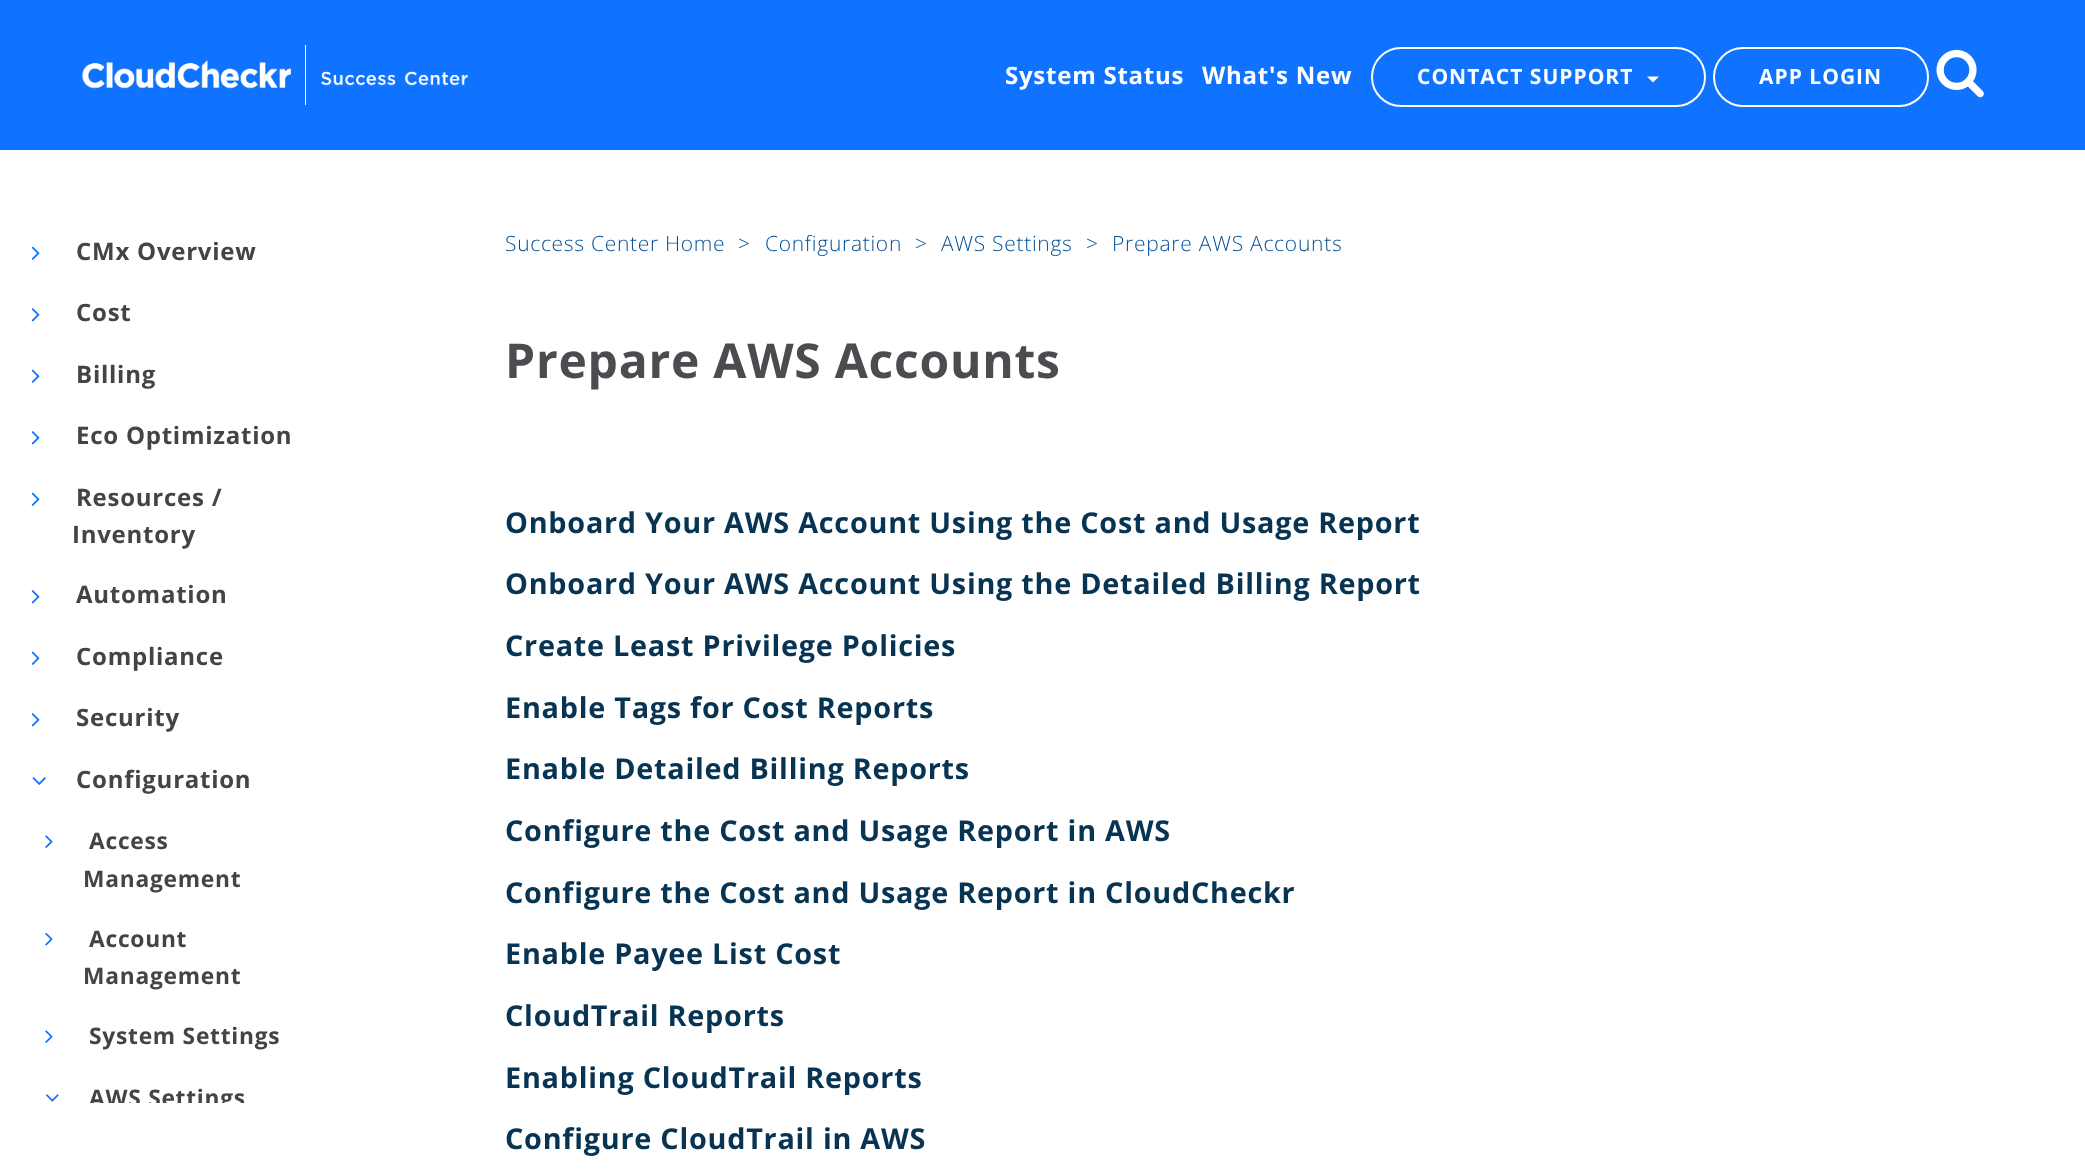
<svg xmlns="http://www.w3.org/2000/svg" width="2085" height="1169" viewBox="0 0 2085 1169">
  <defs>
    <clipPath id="clip1"><rect x="24" y="233" width="323" height="870"/></clipPath>
  </defs>
  <rect width="100%" height="100%" fill="rgb(255,255,255)"/>
  <rect x="0" y="0" width="2085" height="150" fill="rgb(16,115,255)"/>
  <image x="82" y="45" width="386" height="60" href="pic1.png"/>
  <g font-family="Open Sans" font-size="24" font-weight="bold" letter-spacing="0.75" fill="rgb(255,255,255)">
    <text x="1005" y="84">System Status</text>
    <text x="1202" y="84">What's New</text>
  </g>
  <rect x="1372" y="48" width="333" height="58" rx="29" fill="none" stroke="rgb(255,255,255)" stroke-width="2"/>
  <text x="1417" y="84" font-family="Open Sans" font-size="21" font-weight="bold" letter-spacing="1" fill="rgb(255,255,255)">CONTACT SUPPORT</text>
  <path d="M1647 76.5H1659L1653 82.5Z" fill="rgb(255,255,255)"/>
  <rect x="1714" y="48" width="214" height="58" rx="29" fill="none" stroke="rgb(255,255,255)" stroke-width="2"/>
  <text x="1759" y="84" font-family="Open Sans" font-size="21" font-weight="bold" letter-spacing="1" fill="rgb(255,255,255)">APP LOGIN</text>
  <image x="1936" y="49" width="48" height="49" href="pic2.png"/>
  <image x="31" y="246" width="9" height="14" href="pic3.png"/>
  <text x="76" y="260" font-family="Open Sans" font-size="24" font-weight="bold" letter-spacing="0.75" fill="rgb(68,68,68)">CMx Overview</text>
  <image x="31" y="308" width="9" height="14" href="pic4.png"/>
  <text x="76" y="321" font-family="Open Sans" font-size="24" font-weight="bold" letter-spacing="0.75" fill="rgb(68,68,68)">Cost</text>
  <image x="31" y="369" width="9" height="14" href="pic3.png"/>
  <text x="76" y="383" font-family="Open Sans" font-size="24" font-weight="bold" letter-spacing="0.75" fill="rgb(68,68,68)">Billing</text>
  <image x="31" y="431" width="9" height="14" href="pic4.png"/>
  <text x="76" y="444" font-family="Open Sans" font-size="24" font-weight="bold" letter-spacing="0.75" fill="rgb(68,68,68)">Eco Optimization</text>
  <image x="31" y="492" width="9" height="14" href="pic3.png"/>
  <g font-family="Open Sans" font-size="24" font-weight="bold" letter-spacing="0.75" fill="rgb(68,68,68)">
    <text x="76" y="506">Resources /</text>
    <text x="72" y="543">Inventory</text>
  </g>
  <image x="31" y="590" width="9" height="14" href="pic4.png"/>
  <text x="76" y="603" font-family="Open Sans" font-size="24" font-weight="bold" letter-spacing="0.75" fill="rgb(68,68,68)">Automation</text>
  <image x="31" y="651" width="9" height="14" href="pic3.png"/>
  <text x="76" y="665" font-family="Open Sans" font-size="24" font-weight="bold" letter-spacing="0.75" fill="rgb(68,68,68)">Compliance</text>
  <image x="31" y="713" width="9" height="14" href="pic4.png"/>
  <text x="76" y="726" font-family="Open Sans" font-size="24" font-weight="bold" letter-spacing="0.75" fill="rgb(68,68,68)">Security</text>
  <image x="32" y="777" width="14" height="8" href="pic5.png"/>
  <text x="76" y="788" font-family="Open Sans" font-size="24" font-weight="bold" letter-spacing="0.75" fill="rgb(68,68,68)">Configuration</text>
  <image x="45" y="835" width="8" height="13" href="pic6.png"/>
  <g font-family="Open Sans" font-size="22.75" font-weight="bold" letter-spacing="0.75" fill="rgb(68,68,68)">
    <text x="89" y="849">Access</text>
    <text x="83" y="887">Management</text>
  </g>
  <image x="45" y="932" width="8" height="14" href="pic7.png"/>
  <g font-family="Open Sans" font-size="22.75" font-weight="bold" letter-spacing="0.75" fill="rgb(68,68,68)">
    <text x="89" y="947">Account</text>
    <text x="83" y="984">Management</text>
  </g>
  <image x="45" y="1030" width="8" height="13" href="pic6.png"/>
  <text x="89" y="1044" font-family="Open Sans" font-size="22.75" font-weight="bold" letter-spacing="0.75" fill="rgb(68,68,68)">System Settings</text>
  <image x="46" y="1094" width="13" height="8" href="pic8.png"/>
  <g clip-path="url(#clip1)">
    <text x="89" y="1106" font-family="Open Sans" font-size="22.75" font-weight="bold" letter-spacing="0.75" fill="rgb(68,68,68)">AWS Settings</text>
  </g>
  <text x="505" y="251" font-family="Open Sans" font-size="21" font-weight="300" letter-spacing="0.7" fill="rgb(3,80,150)">Success Center Home</text>
  <text x="738" y="251" font-family="Open Sans" font-size="21" font-weight="300" letter-spacing="0.75" fill="rgb(3,80,150)">&gt;</text>
  <text x="765" y="251" font-family="Open Sans" font-size="21" font-weight="300" letter-spacing="0.7" fill="rgb(3,80,150)">Configuration</text>
  <text x="915" y="251" font-family="Open Sans" font-size="21" font-weight="300" letter-spacing="0.75" fill="rgb(3,80,150)">&gt;</text>
  <text x="941" y="251" font-family="Open Sans" font-size="21" font-weight="300" letter-spacing="0.7" fill="rgb(3,80,150)">AWS Settings</text>
  <g font-family="Open Sans" font-size="21" font-weight="300" letter-spacing="0.75" fill="rgb(3,80,150)">
    <text x="1086" y="251">&gt;</text>
    <text x="1112" y="251">Prepare AWS Accounts</text>
  </g>
  <text x="505" y="378" font-family="Open Sans" font-size="48" font-weight="bold" letter-spacing="0.75" fill="rgb(75,76,80)">Prepare AWS Accounts</text>
  <g font-family="Open Sans" font-size="28.8" font-weight="bold" letter-spacing="0.75" fill="rgb(8,52,83)">
    <text x="505" y="533">Onboard Your AWS Account Using the Cost and Usage Report</text>
    <text x="505" y="594">Onboard Your AWS Account Using the Detailed Billing Report</text>
    <text x="505" y="656">Create Least Privilege Policies</text>
    <text x="505" y="718">Enable Tags for Cost Reports</text>
    <text x="505" y="779">Enable Detailed Billing Reports</text>
    <text x="505" y="841">Configure the Cost and Usage Report in AWS</text>
    <text x="505" y="903">Configure the Cost and Usage Report in CloudCheckr</text>
    <text x="505" y="964">Enable Payee List Cost</text>
    <text x="505" y="1026">CloudTrail Reports</text>
    <text x="505" y="1088">Enabling CloudTrail Reports</text>
    <text x="505" y="1149">Configure CloudTrail in AWS</text>
  </g>
</svg>
